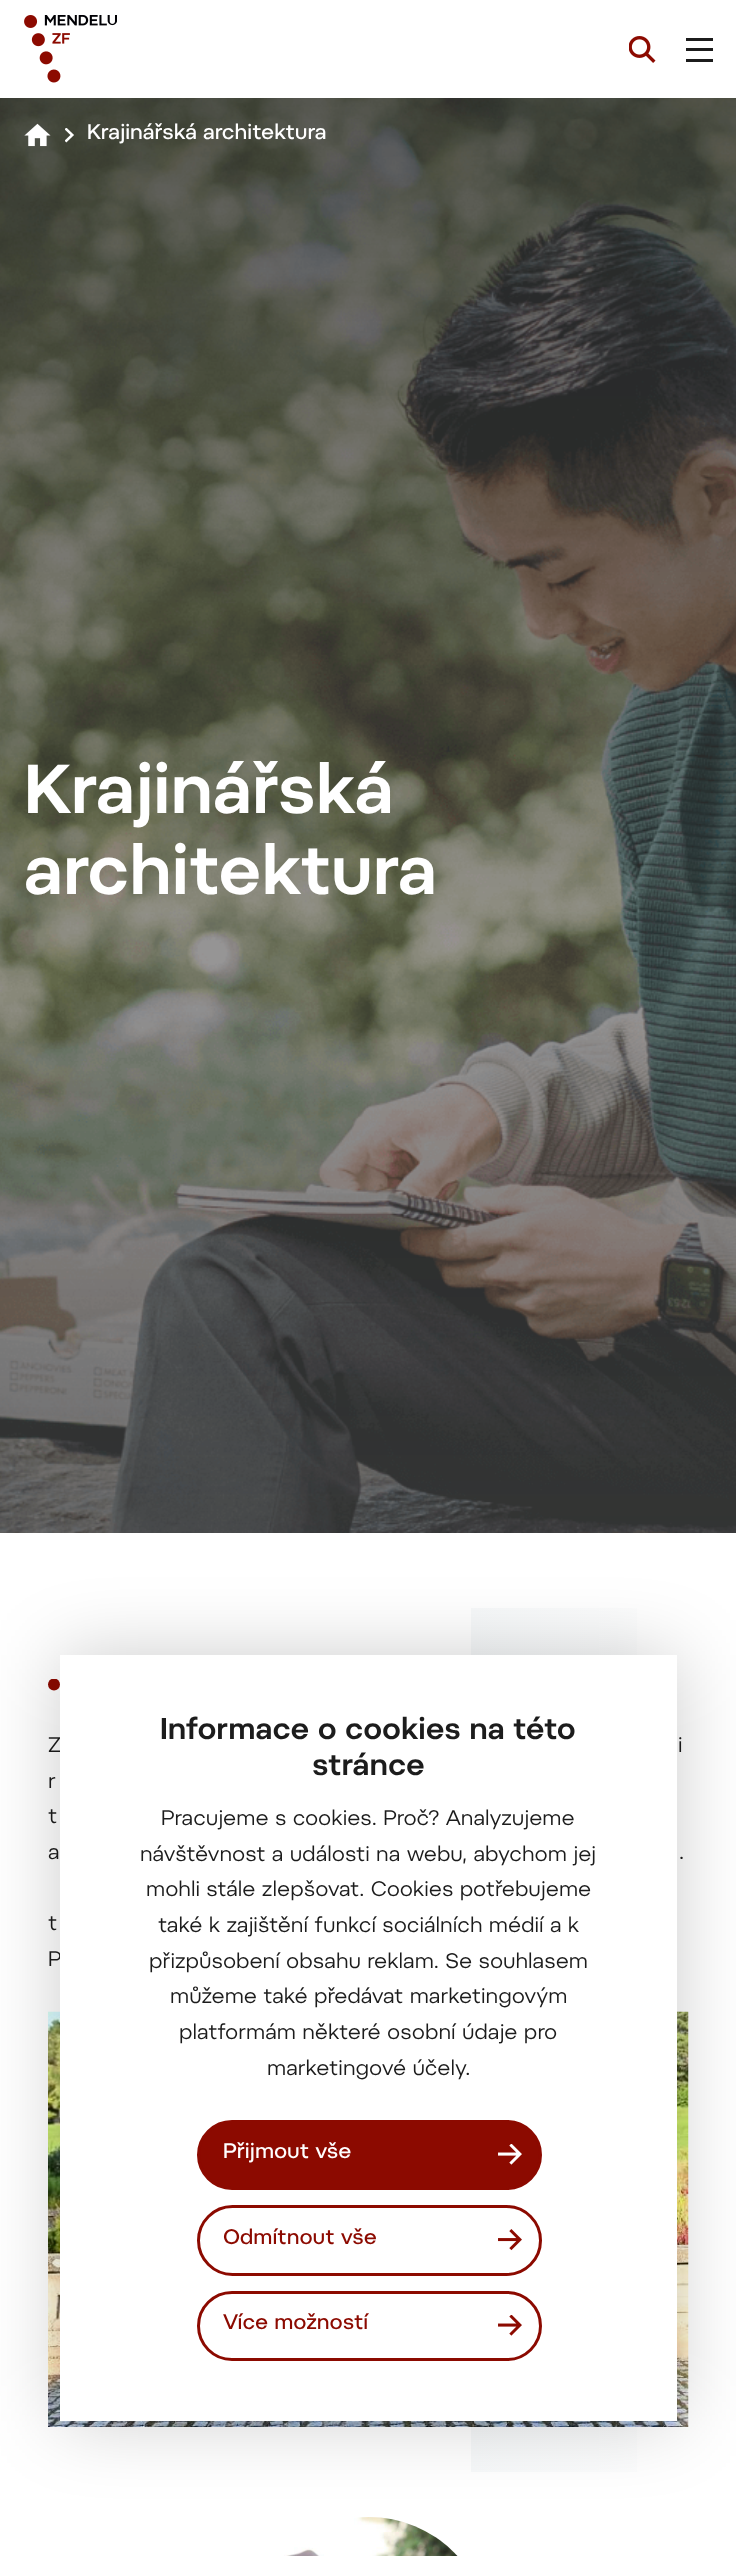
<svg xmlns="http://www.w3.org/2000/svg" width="736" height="2556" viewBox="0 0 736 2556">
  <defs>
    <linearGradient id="g1" gradientUnits="userSpaceOnUse" x1="472" y1="2040" x2="712" y2="2040"><stop offset="0" stop-color="rgb(247,249,250)"/><stop offset="1" stop-color="rgb(255,255,255)"/></linearGradient>
    <clipPath id="clip1"><rect x="48" y="1679" width="12" height="12"/></clipPath>
  </defs>
  <rect width="100%" height="100%" fill="rgb(255,255,255)"/>
  <image x="24" y="15" width="93" height="68" href="pic1.png"/>
  <image x="629" y="36" width="27" height="27" href="pic2.png"/>
  <rect x="686" y="38" width="27" height="3" fill="rgb(28,28,28)"/>
  <rect x="686" y="48" width="27" height="3" fill="rgb(28,28,28)"/>
  <rect x="686" y="59" width="27" height="3" fill="rgb(28,28,28)"/>
  <image x="0" y="98" width="736" height="1435" href="pic3.png"/>
  <image x="24" y="123" width="27" height="24" href="pic4.png"/>
  <image x="65" y="128" width="9" height="15" href="pic5.png"/>
  <text x="87" y="139" font-family="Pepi" font-size="21" font-weight="500" fill="rgb(255,255,255)">Krajinářská architektura</text>
  <g font-family="Pepi" font-size="69" font-weight="600" fill="rgb(255,255,255)">
    <text>
      <tspan x="24" y="813">Krajinářská</tspan>
      <tspan x="24" y="894">architektura</tspan>
    </text>
  </g>
  <rect x="471" y="1608" width="166" height="864" fill="url(#g1)"/>
  <g clip-path="url(#clip1)">
    <circle cx="54" cy="1684.5" r="6" fill="rgb(140,10,0)"/>
  </g>
  <g font-family="Pepi" font-size="21" fill="rgb(28,28,28)">
    <text x="48" y="1752">Z</text>
    <text x="678" y="1752">i</text>
    <text>
      <tspan x="48" y="1788">r</tspan>
      <tspan x="48" y="1823">t</tspan>
      <tspan x="48" y="1859">a</tspan>
    </text>
    <text x="679" y="1859">.</text>
    <text>
      <tspan x="48" y="1930">t</tspan>
      <tspan x="48" y="1966">P</tspan>
    </text>
  </g>
  <image x="48" y="2011" width="641" height="416" href="pic6.png"/>
  <image x="284" y="2517" width="174" height="39" href="pic7.png"/>
  <rect x="60" y="1655" width="617" height="766" fill="rgba(0,0,0,0.2)" filter="blur(37.5px)"/>
  <rect x="60" y="1655" width="617" height="766" fill="rgb(255,255,255)"/>
  <g font-family="Pepi" font-size="30" font-weight="600" fill="rgb(28,28,28)">
    <text x="160" y="1739">Informace o cookies na této</text>
    <text x="312" y="1775">stránce</text>
  </g>
  <g font-family="Pepi" font-size="21" fill="rgb(28,28,28)">
    <text x="161" y="1825">Pracujeme s cookies. Proč? Analyzujeme</text>
    <text x="140" y="1861">návštěvnost a události na webu, abychom jej</text>
    <text x="146" y="1896">mohli stále zlepšovat. Cookies potřebujeme</text>
    <text x="158" y="1932">také k zajištění funkcí sociálních médií a k</text>
    <text x="149" y="1968">přizpůsobení obsahu reklam. Se souhlasem</text>
    <text x="170" y="2003">můžeme také předávat marketingovým</text>
    <text x="179" y="2039">platformám některé osobní údaje pro</text>
    <text x="267" y="2075">marketingové účely.</text>
  </g>
  <rect x="198.5" y="2121.5" width="342" height="67" rx="33.5" fill="rgb(140,10,0)" stroke="rgb(140,10,0)" stroke-width="3"/>
  <text x="223" y="2158" font-family="Pepi" font-size="21" font-weight="500" fill="rgb(255,255,255)">Přijmout vše</text>
  <image x="498" y="2144" width="24" height="21" href="pic8.png"/>
  <rect x="198.5" y="2206.5" width="342" height="68" rx="34" fill="none" stroke="rgb(140,10,0)" stroke-width="3"/>
  <text x="223" y="2244" font-family="Pepi" font-size="21" font-weight="500" fill="rgb(140,10,0)">Odmítnout vše</text>
  <image x="498" y="2229" width="24" height="22" href="pic9.png"/>
  <rect x="198.5" y="2292.5" width="342" height="67" rx="33.5" fill="none" stroke="rgb(140,10,0)" stroke-width="3"/>
  <text x="223" y="2329" font-family="Pepi" font-size="21" font-weight="500" fill="rgb(140,10,0)">Více možností</text>
  <image x="498" y="2315" width="24" height="21" href="pic10.png"/>
</svg>
